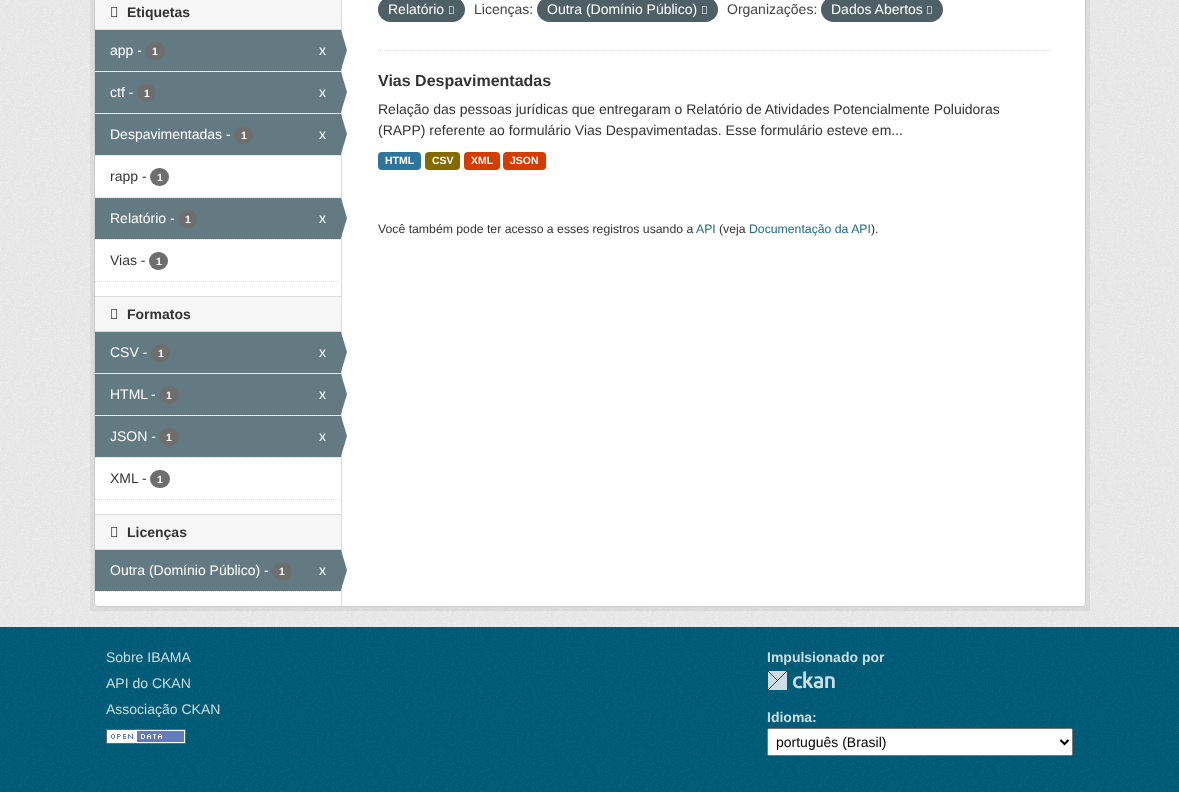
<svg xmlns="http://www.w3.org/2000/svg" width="1179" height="792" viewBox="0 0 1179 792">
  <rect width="100%" height="100%" fill="rgb(0,93,122)"/>
  <rect x="0" y="0" width="1179" height="627" fill="rgb(238,238,238)"/>
  <image x="0" y="0" width="1179" height="627" href="pic1.png"/>
  <rect x="92" y="-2" width="996" height="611" fill="none" stroke="rgba(0,0,0,0.05)" stroke-width="4"/>
  <rect x="94.5" y="-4.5" width="991" height="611" rx="3.5" fill="rgb(255,255,255)" stroke="rgb(204,204,204)"/>
  <rect x="95" y="0" width="246" height="29" fill="rgb(246,246,246)"/>
  <rect x="95" y="29" width="246" height="1" fill="rgb(221,221,221)"/>
  <image x="111" y="7" width="7" height="10" href="pic2.png"/>
  <text x="127" y="17" font-family="Liberation Sans" font-size="14" font-weight="bold" fill="rgb(51,51,51)">Etiquetas</text>
  <rect x="96" y="71" width="245" height="1" fill="rgb(246,246,246)"/>
  <path d="M95 71.5H341" fill="none" stroke="rgb(221,221,221)" stroke-dasharray="1 1"/>
  <rect x="95" y="30" width="246" height="41" fill="rgb(100,122,130)"/>
  <text x="110" y="55" font-family="Liberation Sans" font-size="14" fill="rgb(255,255,255)">app -</text>
  <rect x="145" y="42" width="20" height="18" rx="9" fill="rgb(110,110,110)"/>
  <text x="152" y="55" font-family="Liberation Sans" font-size="10.5" font-weight="bold" fill="rgb(255,255,255)">1</text>
  <text x="319" y="55" font-family="Liberation Sans" font-size="14" fill="rgb(255,255,255)">x</text>
  <rect x="341" y="0" width="1" height="606" fill="rgb(221,221,221)"/>
  <path d="M341 70V30L347 50Z" fill="rgb(100,122,130)"/>
  <rect x="96" y="113" width="245" height="1" fill="rgb(246,246,246)"/>
  <path d="M95 113.5H341" fill="none" stroke="rgb(221,221,221)" stroke-dasharray="1 1"/>
  <rect x="95" y="72" width="246" height="41" fill="rgb(100,122,130)"/>
  <text x="110" y="97" font-family="Liberation Sans" font-size="14" fill="rgb(255,255,255)">ctf -</text>
  <rect x="137" y="84" width="19" height="18" rx="9" fill="rgb(110,110,110)"/>
  <text x="144" y="97" font-family="Liberation Sans" font-size="10.5" font-weight="bold" fill="rgb(255,255,255)">1</text>
  <text x="319" y="97" font-family="Liberation Sans" font-size="14" fill="rgb(255,255,255)">x</text>
  <path d="M341 112V72L347 92Z" fill="rgb(100,122,130)"/>
  <rect x="96" y="155" width="245" height="1" fill="rgb(246,246,246)"/>
  <path d="M95 155.5H341" fill="none" stroke="rgb(221,221,221)" stroke-dasharray="1 1"/>
  <rect x="95" y="114" width="246" height="41" fill="rgb(100,122,130)"/>
  <text x="110" y="139" font-family="Liberation Sans" font-size="14" fill="rgb(255,255,255)">Despavimentadas -</text>
  <rect x="234" y="126" width="19" height="18" rx="9" fill="rgb(110,110,110)"/>
  <text x="241" y="139" font-family="Liberation Sans" font-size="10.5" font-weight="bold" fill="rgb(255,255,255)">1</text>
  <text x="319" y="139" font-family="Liberation Sans" font-size="14" fill="rgb(255,255,255)">x</text>
  <path d="M341 154V114L347 134Z" fill="rgb(100,122,130)"/>
  <path d="M95 197.5H341" fill="none" stroke="rgb(221,221,221)" stroke-dasharray="1 1"/>
  <text x="110" y="181" font-family="Liberation Sans" font-size="14" fill="rgb(51,51,51)">rapp -</text>
  <rect x="150" y="168" width="19" height="18" rx="9" fill="rgb(110,110,110)"/>
  <text x="157" y="181" font-family="Liberation Sans" font-size="10.5" font-weight="bold" fill="rgb(255,255,255)">1</text>
  <rect x="96" y="239" width="245" height="1" fill="rgb(246,246,246)"/>
  <path d="M95 239.5H341" fill="none" stroke="rgb(221,221,221)" stroke-dasharray="1 1"/>
  <rect x="95" y="198" width="246" height="41" fill="rgb(100,122,130)"/>
  <text x="110" y="223" font-family="Liberation Sans" font-size="14" fill="rgb(255,255,255)">Relatório -</text>
  <rect x="178" y="210" width="19" height="18" rx="9" fill="rgb(110,110,110)"/>
  <text x="185" y="223" font-family="Liberation Sans" font-size="10.5" font-weight="bold" fill="rgb(255,255,255)">1</text>
  <text x="319" y="223" font-family="Liberation Sans" font-size="14" fill="rgb(255,255,255)">x</text>
  <path d="M341 238V198L347 218Z" fill="rgb(100,122,130)"/>
  <text x="110" y="265" font-family="Liberation Sans" font-size="14" fill="rgb(51,51,51)">Vias -</text>
  <rect x="149" y="252" width="19" height="18" rx="9" fill="rgb(110,110,110)"/>
  <text x="156" y="265" font-family="Liberation Sans" font-size="10.5" font-weight="bold" fill="rgb(255,255,255)">1</text>
  <path d="M95 281.5H341" fill="none" stroke="rgb(221,221,221)" stroke-dasharray="1 1"/>
  <rect x="95" y="297" width="246" height="34" fill="rgb(246,246,246)"/>
  <rect x="95" y="296" width="246" height="1" fill="rgb(221,221,221)"/>
  <rect x="95" y="331" width="246" height="1" fill="rgb(221,221,221)"/>
  <image x="111" y="309" width="7" height="10" href="pic2.png"/>
  <text x="127" y="319" font-family="Liberation Sans" font-size="14" font-weight="bold" fill="rgb(51,51,51)">Formatos</text>
  <rect x="96" y="373" width="245" height="1" fill="rgb(246,246,246)"/>
  <path d="M95 373.5H341" fill="none" stroke="rgb(221,221,221)" stroke-dasharray="1 1"/>
  <rect x="95" y="332" width="246" height="41" fill="rgb(100,122,130)"/>
  <text x="110" y="357" font-family="Liberation Sans" font-size="14" fill="rgb(255,255,255)">CSV -</text>
  <rect x="151" y="344" width="19" height="18" rx="9" fill="rgb(110,110,110)"/>
  <text x="158" y="357" font-family="Liberation Sans" font-size="10.5" font-weight="bold" fill="rgb(255,255,255)">1</text>
  <text x="319" y="357" font-family="Liberation Sans" font-size="14" fill="rgb(255,255,255)">x</text>
  <path d="M341 372V332L347 352Z" fill="rgb(100,122,130)"/>
  <rect x="96" y="415" width="245" height="1" fill="rgb(246,246,246)"/>
  <path d="M95 415.5H341" fill="none" stroke="rgb(221,221,221)" stroke-dasharray="1 1"/>
  <rect x="95" y="374" width="246" height="41" fill="rgb(100,122,130)"/>
  <g font-family="Liberation Sans" font-size="14" fill="rgb(255,255,255)">
    <text x="110" y="399">HTML</text>
    <text x="151" y="399">-</text>
  </g>
  <rect x="160" y="386" width="19" height="18" rx="9" fill="rgb(110,110,110)"/>
  <text x="166" y="399" font-family="Liberation Sans" font-size="10.5" font-weight="bold" fill="rgb(255,255,255)">1</text>
  <text x="319" y="399" font-family="Liberation Sans" font-size="14" fill="rgb(255,255,255)">x</text>
  <path d="M341 414V374L347 394Z" fill="rgb(100,122,130)"/>
  <rect x="96" y="457" width="245" height="1" fill="rgb(246,246,246)"/>
  <path d="M95 457.5H341" fill="none" stroke="rgb(221,221,221)" stroke-dasharray="1 1"/>
  <rect x="95" y="416" width="246" height="41" fill="rgb(100,122,130)"/>
  <text x="110" y="441" font-family="Liberation Sans" font-size="14" fill="rgb(255,255,255)">JSON -</text>
  <rect x="159" y="428" width="20" height="18" rx="9" fill="rgb(110,110,110)"/>
  <text x="166" y="441" font-family="Liberation Sans" font-size="10.5" font-weight="bold" fill="rgb(255,255,255)">1</text>
  <text x="319" y="441" font-family="Liberation Sans" font-size="14" fill="rgb(255,255,255)">x</text>
  <path d="M341 456V416L347 436Z" fill="rgb(100,122,130)"/>
  <g font-family="Liberation Sans" font-size="14" fill="rgb(51,51,51)">
    <text x="110" y="483">XML</text>
    <text x="142" y="483">-</text>
  </g>
  <rect x="150" y="470" width="20" height="18" rx="9" fill="rgb(110,110,110)"/>
  <text x="157" y="483" font-family="Liberation Sans" font-size="10.5" font-weight="bold" fill="rgb(255,255,255)">1</text>
  <path d="M95 499.5H341" fill="none" stroke="rgb(221,221,221)" stroke-dasharray="1 1"/>
  <rect x="95" y="515" width="246" height="34" fill="rgb(246,246,246)"/>
  <rect x="95" y="514" width="246" height="1" fill="rgb(221,221,221)"/>
  <rect x="95" y="549" width="246" height="1" fill="rgb(221,221,221)"/>
  <image x="111" y="527" width="7" height="10" href="pic2.png"/>
  <text x="127" y="537" font-family="Liberation Sans" font-size="14" font-weight="bold" fill="rgb(51,51,51)">Licenças</text>
  <rect x="95" y="550" width="246" height="41" fill="rgb(100,122,130)"/>
  <text x="110" y="575" font-family="Liberation Sans" font-size="14" fill="rgb(255,255,255)">Outra (Domínio Público) -</text>
  <rect x="272" y="563" width="20" height="17" rx="8.5" fill="rgb(110,110,110)"/>
  <text x="279" y="575" font-family="Liberation Sans" font-size="10.5" font-weight="bold" fill="rgb(255,255,255)">1</text>
  <text x="319" y="575" font-family="Liberation Sans" font-size="14" fill="rgb(255,255,255)">x</text>
  <path d="M341 590V550L347 570Z" fill="rgb(100,122,130)"/>
  <path d="M95 591.5H341" fill="none" stroke="rgb(221,221,221)" stroke-dasharray="1 1"/>
  <path d="M378 50.5H1049" fill="none" stroke="rgb(221,221,221)" stroke-dasharray="1 1"/>
  <rect x="378" y="-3" width="87" height="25" rx="12.5" fill="rgb(78,95,101)"/>
  <text x="388" y="14" font-family="Liberation Sans" font-size="14" fill="rgb(255,255,255)">Relatório</text>
  <image x="449" y="6" width="5" height="8" href="pic3.png"/>
  <text x="474" y="14" font-family="Liberation Sans" font-size="14" fill="rgb(68,68,68)">Licenças:</text>
  <rect x="537" y="-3" width="181" height="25" rx="12.5" fill="rgb(78,95,101)"/>
  <text x="547" y="14" font-family="Liberation Sans" font-size="14" fill="rgb(255,255,255)">Outra (Domínio Público)</text>
  <image x="702" y="6" width="5" height="8" href="pic3.png"/>
  <text x="727" y="14" font-family="Liberation Sans" font-size="14" fill="rgb(68,68,68)">Organizações:</text>
  <rect x="821" y="-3" width="122" height="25" rx="12.5" fill="rgb(78,95,101)"/>
  <text x="831" y="14" font-family="Liberation Sans" font-size="14" fill="rgb(255,255,255)">Dados Abertos</text>
  <image x="927" y="6" width="5" height="8" href="pic3.png"/>
  <text x="378" y="86" font-family="Liberation Sans" font-size="16" font-weight="bold" fill="rgb(51,51,51)">Vias Despavimentadas</text>
  <g font-family="Liberation Sans" font-size="14" fill="rgb(51,51,51)">
    <text>
      <tspan x="378" y="114">Relação das pessoas jurídicas que entregaram o Relatório de Atividades Potencialmente Poluidoras</tspan>
      <tspan x="378" y="135">(RAPP) referente ao formulário Vias Despavimentadas. Esse formulário esteve em...</tspan>
    </text>
  </g>
  <rect x="378" y="152" width="43" height="18" rx="4" fill="rgb(46,117,158)"/>
  <text x="385" y="164" font-family="Liberation Sans" font-size="10.5" font-weight="bold" fill="rgb(255,255,255)">HTML</text>
  <rect x="425" y="152" width="35" height="18" rx="4" fill="rgb(133,106,0)"/>
  <text x="432" y="164" font-family="Liberation Sans" font-size="10.5" font-weight="bold" fill="rgb(255,255,255)">CSV</text>
  <rect x="464" y="152" width="36" height="18" rx="4" fill="rgb(214,59,0)"/>
  <text x="471" y="164" font-family="Liberation Sans" font-size="10.5" font-weight="bold" fill="rgb(255,255,255)">XML</text>
  <rect x="503" y="152" width="43" height="18" rx="4" fill="rgb(214,59,0)"/>
  <text x="510" y="164" font-family="Liberation Sans" font-size="10.5" font-weight="bold" fill="rgb(255,255,255)">JSON</text>
  <text x="378" y="233" font-family="Liberation Sans" font-size="12.25" fill="rgb(51,51,51)">Você também pode ter acesso a esses registros usando a</text>
  <text x="696" y="233" font-family="Liberation Sans" font-size="12.25" fill="rgb(32,107,130)">API</text>
  <text x="719" y="233" font-family="Liberation Sans" font-size="12.25" fill="rgb(51,51,51)">(veja</text>
  <text x="749" y="233" font-family="Liberation Sans" font-size="12.25" fill="rgb(32,107,130)">Documentação da API</text>
  <text x="871" y="233" font-family="Liberation Sans" font-size="12.25" fill="rgb(51,51,51)">).</text>
  <image x="0" y="627" width="1179" height="165" href="pic4.png"/>
  <g font-family="Liberation Sans" font-size="14" fill="rgb(204,222,227)">
    <text>
      <tspan x="106" y="662">Sobre IBAMA</tspan>
      <tspan x="106" y="688">API do CKAN</tspan>
      <tspan x="106" y="714">Associação CKAN</tspan>
    </text>
  </g>
  <image x="106" y="729" width="80" height="15" href="pic5.png"/>
  <text x="767" y="662" font-family="Liberation Sans" font-size="14" font-weight="bold" fill="rgb(204,222,227)">Impulsionado por</text>
  <image x="768" y="671" width="67" height="19" href="pic6.png"/>
  <text x="767" y="722" font-family="Liberation Sans" font-size="14" font-weight="bold" fill="rgb(204,222,227)">Idioma:</text>
  <rect x="767.5" y="728.5" width="305" height="27" rx="1.5" fill="rgb(255,255,255)" stroke="rgb(118,118,118)"/>
  <path d="M1060.5 740L1064.5 744L1068.5 740" fill="none" stroke="rgb(0,0,0)" stroke-width="2"/>
  <text x="776" y="747" font-family="Liberation Sans" font-size="14" fill="rgb(0,0,0)">português (Brasil)</text>
</svg>
